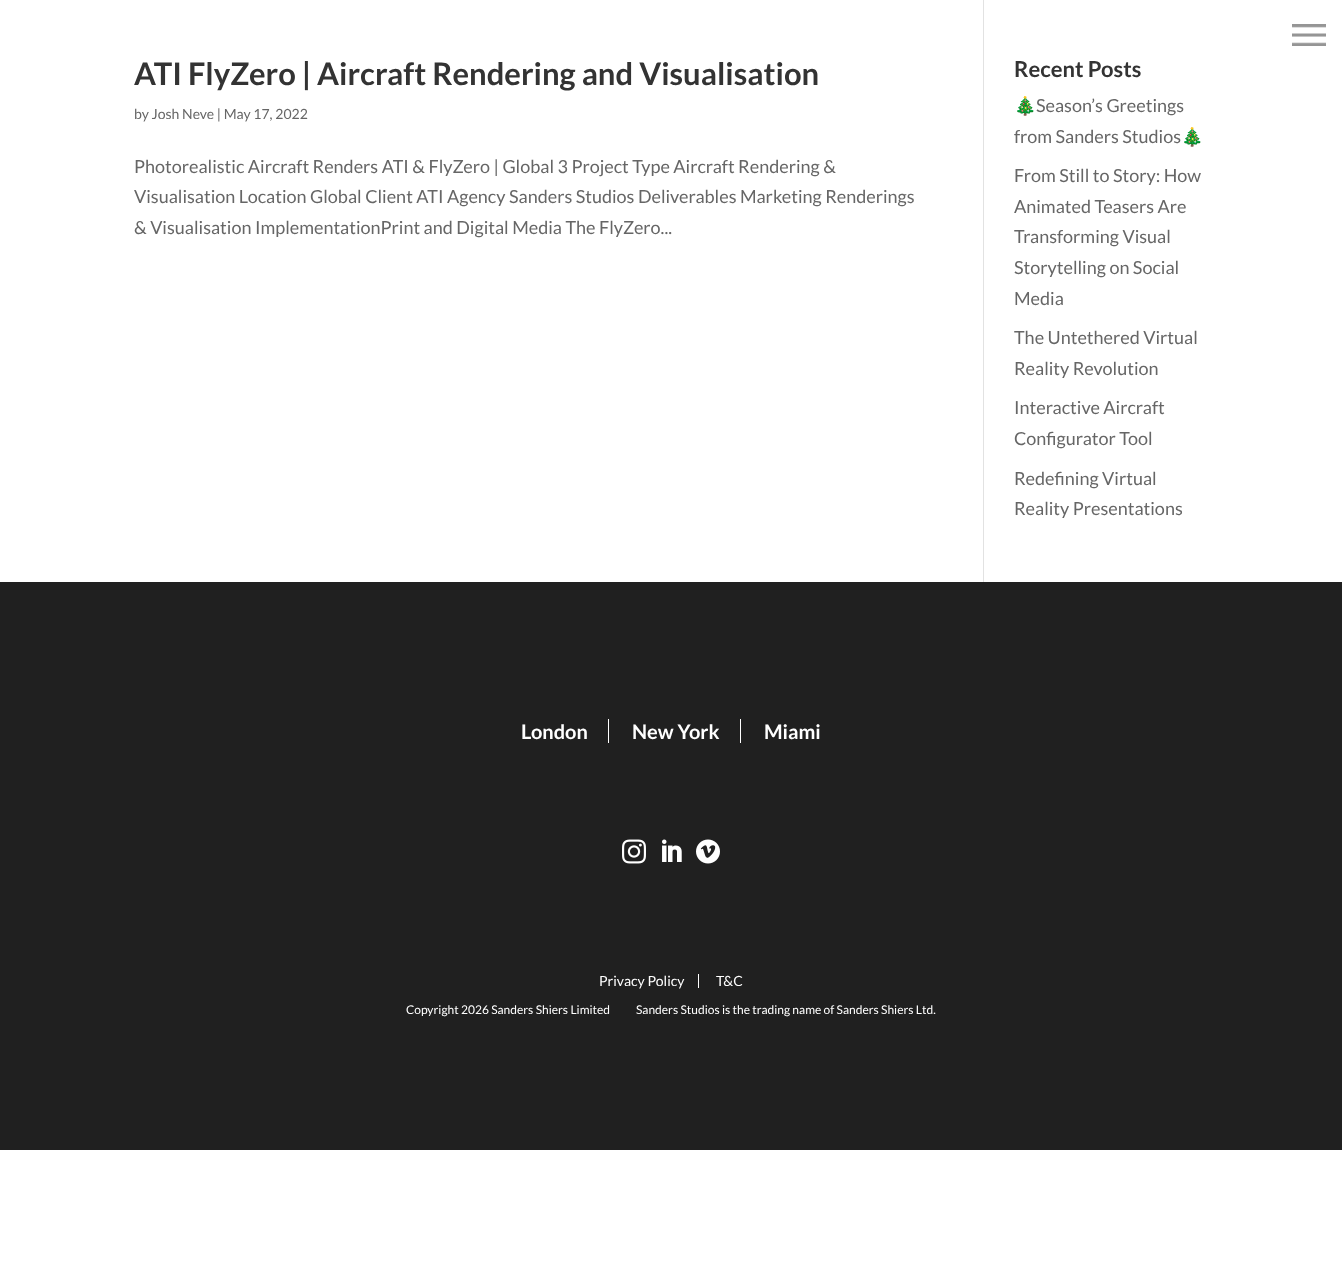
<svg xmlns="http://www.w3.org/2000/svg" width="1342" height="1276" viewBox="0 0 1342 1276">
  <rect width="100%" height="100%" fill="rgb(255,255,255)"/>
  <image x="1292" y="24" width="34" height="22" href="pic1.png"/>
  <rect x="983" y="0" width="1" height="582" fill="rgb(226,226,226)"/>
  <text x="134" y="85" font-family="Lato" font-size="31" font-weight="bold" fill="rgb(51,51,51)">ATI FlyZero | Aircraft Rendering and Visualisation</text>
  <text x="134" y="119" font-family="Lato" font-size="14" fill="rgb(102,102,102)">by Josh Neve | May 17, 2022</text>
  <g font-family="Lato" font-size="18" fill="rgb(102,102,102)">
    <text>
      <tspan x="134" y="173">Photorealistic Aircraft Renders ATI &amp; FlyZero | Global 3 Project Type Aircraft Rendering &amp;</tspan>
      <tspan x="134" y="203">Visualisation Location Global Client ATI Agency Sanders Studios Deliverables Marketing Renderings</tspan>
      <tspan x="134" y="234">&amp; Visualisation ImplementationPrint and Digital Media The FlyZero...</tspan>
    </text>
  </g>
  <text x="1014" y="77" font-family="Lato" font-size="22" font-weight="bold" fill="rgb(51,51,51)">Recent Posts</text>
  <text x="1014" y="112" font-family="Noto Color Emoji" font-size="18" fill="rgb(102,102,102)">🎄</text>
  <g font-family="Lato" font-size="18" fill="rgb(102,102,102)">
    <text x="1036" y="112">Season’s Greetings</text>
    <text x="1014" y="143">from Sanders Studios</text>
  </g>
  <text x="1181" y="143" font-family="Noto Color Emoji" font-size="18" fill="rgb(102,102,102)">🎄</text>
  <g font-family="Lato" font-size="18" fill="rgb(102,102,102)">
    <text>
      <tspan x="1014" y="182">From Still to Story: How</tspan>
      <tspan x="1014" y="213">Animated Teasers Are</tspan>
      <tspan x="1014" y="243">Transforming Visual</tspan>
      <tspan x="1014" y="274">Storytelling on Social</tspan>
      <tspan x="1014" y="305">Media</tspan>
    </text>
    <text>
      <tspan x="1014" y="344">The Untethered Virtual</tspan>
      <tspan x="1014" y="375">Reality Revolution</tspan>
    </text>
    <text>
      <tspan x="1014" y="414">Interactive Aircraft</tspan>
      <tspan x="1014" y="445">Configurator Tool</tspan>
    </text>
    <text>
      <tspan x="1014" y="485">Redefining Virtual</tspan>
      <tspan x="1014" y="515">Reality Presentations</tspan>
    </text>
  </g>
  <rect x="0" y="582" width="1342" height="568" fill="rgb(32,32,32)"/>
  <text x="521" y="739" font-family="Lato" font-size="20" font-weight="bold" fill="rgb(255,255,255)">London</text>
  <rect x="608" y="719" width="1" height="24" fill="rgb(255,255,255)"/>
  <text x="632" y="739" font-family="Lato" font-size="20" font-weight="bold" fill="rgb(255,255,255)">New York</text>
  <rect x="740" y="719" width="1" height="24" fill="rgb(255,255,255)"/>
  <text x="764" y="739" font-family="Lato" font-size="20" font-weight="bold" fill="rgb(255,255,255)">Miami</text>
  <image x="622" y="839" width="24" height="25" href="pic2.png"/>
  <image x="662" y="839" width="20" height="23" href="pic3.png"/>
  <image x="696" y="839" width="24" height="25" href="pic4.png"/>
  <rect x="698" y="974" width="1" height="14" fill="rgb(255,255,255)"/>
  <g font-family="Lato" font-size="14" fill="rgb(255,255,255)">
    <text x="599" y="986">Privacy Policy</text>
    <text x="716" y="986">T&amp;C</text>
  </g>
  <g font-family="Lato" font-size="12" fill="rgb(255,255,255)">
    <text x="406" y="1014">Copyright 2026 Sanders Shiers Limited</text>
    <text x="636" y="1014">Sanders Studios is the trading name of Sanders Shiers Ltd.</text>
  </g>
</svg>
